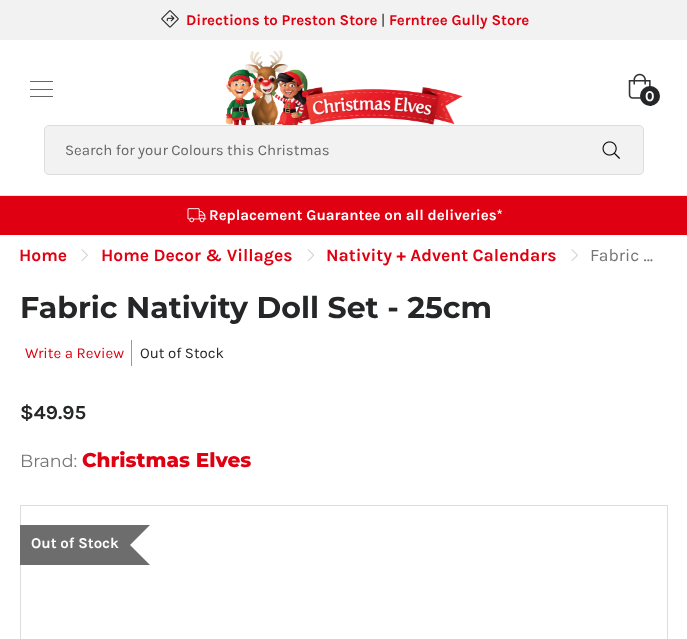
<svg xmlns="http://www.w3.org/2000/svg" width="687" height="639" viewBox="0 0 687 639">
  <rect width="100%" height="100%" fill="rgb(255,255,255)"/>
  <rect x="0" y="195" width="687" height="1" fill="rgb(229,229,229)"/>
  <rect x="0" y="0" width="687" height="40" fill="rgb(242,242,242)"/>
  <image x="161" y="10" width="18" height="18" href="pic1.png"/>
  <text x="186" y="25" font-family="Karla" font-size="15" font-weight="bold" fill="rgb(223,0,17)">Directions to Preston Store</text>
  <text x="381" y="25" font-family="Karla" font-size="15" fill="rgb(37,38,39)">|</text>
  <text x="389" y="25" font-family="Karla" font-size="15" font-weight="bold" fill="rgb(223,0,17)">Ferntree Gully Store</text>
  <rect x="30" y="89" width="23" height="1" fill="rgb(102,102,102)"/>
  <rect x="30" y="81" width="23" height="1" fill="rgb(102,102,102)"/>
  <rect x="30" y="96" width="23" height="1" fill="rgb(102,102,102)"/>
  <image x="225" y="50" width="238" height="75" href="pic2.png"/>
  <image x="628" y="73" width="23" height="26" href="pic3.png"/>
  <circle cx="650" cy="96" r="10" fill="rgb(37,38,39)"/>
  <text x="645" y="101" font-family="Karla" font-size="15" font-weight="bold" fill="rgb(255,255,255)">0</text>
  <rect x="44.5" y="125.5" width="599" height="49" rx="4.5" fill="rgb(242,242,242)" stroke="rgb(221,221,221)"/>
  <text x="65" y="155" font-family="Karla" font-size="15" fill="rgb(102,102,102)">Search for your Colours this Christmas</text>
  <image x="602" y="141" width="18" height="18" href="pic4.png"/>
  <rect x="0" y="196" width="687" height="39" fill="rgb(223,0,17)"/>
  <image x="187" y="208" width="20" height="15" href="pic5.png"/>
  <text x="209" y="220" font-family="Karla" font-size="15" font-weight="bold" fill="rgb(255,255,255)">Replacement Guarantee on all deliveries*</text>
  <text x="19" y="261" font-family="Karla" font-size="17.5" font-weight="bold" fill="rgb(223,0,17)">Home</text>
  <image x="81" y="249" width="7" height="12" href="pic6.png"/>
  <text x="101" y="261" font-family="Karla" font-size="17.5" font-weight="bold" fill="rgb(223,0,17)">Home Decor &amp; Villages</text>
  <image x="307" y="249" width="7" height="12" href="pic7.png"/>
  <text x="326" y="261" font-family="Karla" font-size="17.5" font-weight="bold" fill="rgb(223,0,17)">Nativity + Advent Calendars</text>
  <image x="571" y="249" width="7" height="12" href="pic6.png"/>
  <text x="590" y="261" font-family="Karla" font-size="17.5" fill="rgb(117,117,117)">Fabric …</text>
  <text x="20" y="318" font-family="Montserrat" font-size="30" font-weight="bold" fill="rgb(37,38,39)">Fabric Nativity Doll Set - 25cm</text>
  <text x="25" y="358" font-family="Karla" font-size="15" fill="rgb(223,0,17)">Write a Review</text>
  <rect x="131" y="340" width="1" height="26" fill="rgb(153,153,153)"/>
  <text x="140" y="358" font-family="Karla" font-size="15" fill="rgb(37,38,39)">Out of Stock</text>
  <text x="20" y="419" font-family="Karla" font-size="20" font-weight="bold" fill="rgb(37,38,39)">$49.95</text>
  <text x="20" y="467" font-family="Montserrat" font-size="17.5" fill="rgb(117,117,117)">Brand:</text>
  <text x="82" y="467" font-family="Montserrat" font-size="20" font-weight="800" fill="rgb(223,0,17)">Christmas Elves</text>
  <rect x="20.5" y="505.5" width="647" height="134" fill="none" stroke="rgb(221,221,221)"/>
  <rect x="20" y="525" width="110" height="40" fill="rgb(109,109,109)"/>
  <text x="31" y="548" font-family="Karla" font-size="15" font-weight="bold" fill="rgb(255,255,255)">Out of Stock</text>
  <path d="M130 525H150L130 545ZM150 565H130V545Z" fill="rgb(109,109,109)"/>
</svg>
